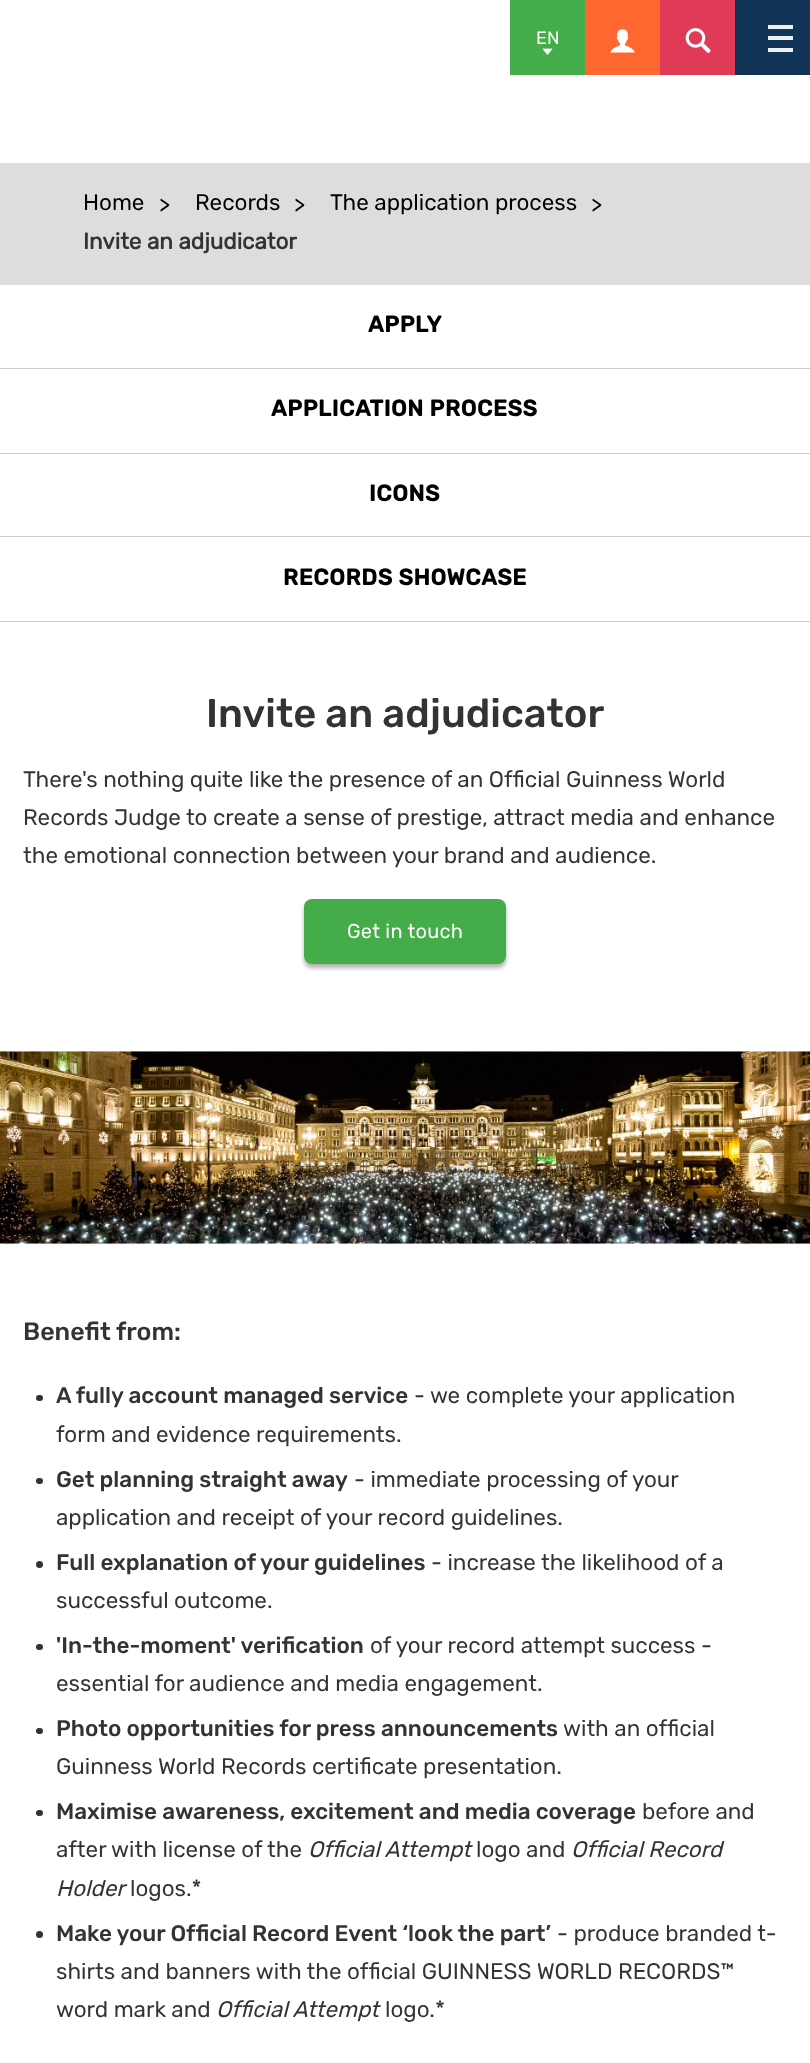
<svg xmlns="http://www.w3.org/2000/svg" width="810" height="2063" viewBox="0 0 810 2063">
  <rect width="100%" height="100%" fill="rgb(255,255,255)"/>
  <rect x="510" y="0" width="75" height="75" fill="rgb(68,173,73)"/>
  <text x="536" y="44" font-family="Rubik" font-size="18" fill="rgb(255,255,255)">EN</text>
  <image x="542" y="48" width="11" height="7" href="pic1.png"/>
  <rect x="585" y="0" width="75" height="75" fill="rgb(255,103,48)"/>
  <image x="610" y="29" width="25" height="24" href="pic2.png"/>
  <rect x="660" y="0" width="75" height="75" fill="rgb(223,58,86)"/>
  <image x="685" y="28" width="26" height="25" href="pic3.png"/>
  <rect x="735" y="0" width="75" height="75" fill="rgb(18,52,87)"/>
  <rect x="768" y="25" width="25" height="4" fill="rgb(236,240,241)"/>
  <rect x="768" y="36" width="25" height="4" fill="rgb(236,240,241)"/>
  <rect x="768" y="48" width="25" height="4" fill="rgb(236,240,241)"/>
  <rect x="0" y="163" width="810" height="122" fill="rgb(221,221,221)"/>
  <g font-family="Rubik" font-size="22.5" fill="rgb(0,0,0)">
    <text x="83" y="210">Home</text>
    <text x="159" y="213">&gt;</text>
    <text x="195" y="210">Records</text>
    <text x="294" y="213">&gt;</text>
    <text x="330" y="210">The application process</text>
    <text x="591" y="213">&gt;</text>
  </g>
  <text x="83" y="249" font-family="Rubik" font-size="22.5" font-weight="bold" fill="rgb(51,51,51)">Invite an adjudicator</text>
  <rect x="0" y="368" width="810" height="1" fill="rgb(204,204,204)"/>
  <text x="368" y="332" font-family="'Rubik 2'" font-size="22.5" font-weight="bold" letter-spacing="0.6" fill="rgb(0,0,0)">APPLY</text>
  <rect x="0" y="453" width="810" height="1" fill="rgb(204,204,204)"/>
  <text x="271" y="416" font-family="'Rubik 2'" font-size="22.5" font-weight="bold" letter-spacing="0.6" fill="rgb(0,0,0)">APPLICATION PROCESS</text>
  <rect x="0" y="536" width="810" height="1" fill="rgb(204,204,204)"/>
  <text x="369" y="501" font-family="'Rubik 2'" font-size="22.5" font-weight="bold" letter-spacing="0.6" fill="rgb(0,0,0)">ICONS</text>
  <rect x="0" y="621" width="810" height="1" fill="rgb(204,204,204)"/>
  <text x="283" y="585" font-family="'Rubik 2'" font-size="22.5" font-weight="bold" letter-spacing="0.6" fill="rgb(0,0,0)">RECORDS SHOWCASE</text>
  <text x="206" y="727" font-family="Rubik" font-size="40" font-weight="500" fill="rgb(51,51,51)">Invite an adjudicator</text>
  <g font-family="Rubik" font-size="22.5" fill="rgb(51,51,51)">
    <text>
      <tspan x="23" y="787">There's nothing quite like the presence of an Official Guinness World</tspan>
      <tspan x="23" y="825">Records Judge to create a sense of prestige, attract media and enhance</tspan>
      <tspan x="23" y="863">the emotional connection between your brand and audience.</tspan>
    </text>
  </g>
  <rect x="304" y="903" width="202" height="65" rx="8" fill="rgba(0,0,0,0.3)" filter="blur(2px)"/>
  <rect x="304" y="899" width="202" height="65" rx="8" fill="rgb(68,173,73)"/>
  <text x="347" y="938" font-family="Rubik" font-size="20" letter-spacing="0.25" fill="rgb(255,255,255)">Get in touch</text>
  <image x="0" y="1051" width="810" height="193" href="pic4.png"/>
  <text x="23" y="1340" font-family="Rubik" font-size="25" font-weight="500" fill="rgb(51,51,51)">Benefit from:</text>
  <rect x="36" y="1395" width="7" height="6" rx="3" fill="rgb(51,51,51)"/>
  <text x="56" y="1403" font-family="Rubik" font-size="22.5" font-weight="500" fill="rgb(51,51,51)">A fully account managed service</text>
  <g font-family="Rubik" font-size="22.5" fill="rgb(51,51,51)">
    <text x="414" y="1403">- we complete your application</text>
    <text x="56" y="1442">form and evidence requirements.</text>
  </g>
  <rect x="36" y="1478" width="7" height="6" rx="3" fill="rgb(51,51,51)"/>
  <text x="56" y="1487" font-family="Rubik" font-size="22.5" font-weight="500" fill="rgb(51,51,51)">Get planning straight away</text>
  <g font-family="Rubik" font-size="22.5" fill="rgb(51,51,51)">
    <text x="354" y="1487">- immediate processing of your</text>
    <text x="56" y="1525">application and receipt of your record guidelines.</text>
  </g>
  <circle cx="39.5" cy="1564.5" r="3.5" fill="rgb(51,51,51)"/>
  <text x="56" y="1570" font-family="Rubik" font-size="22.5" font-weight="500" fill="rgb(51,51,51)">Full explanation of your guidelines</text>
  <g font-family="Rubik" font-size="22.5" fill="rgb(51,51,51)">
    <text x="431" y="1570">- increase the likelihood of a</text>
    <text x="56" y="1608">successful outcome.</text>
  </g>
  <rect x="36" y="1644" width="7" height="6" rx="3" fill="rgb(51,51,51)"/>
  <text x="56" y="1653" font-family="Rubik" font-size="22.5" font-weight="500" fill="rgb(51,51,51)">'In-the-moment' verification</text>
  <g font-family="Rubik" font-size="22.5" fill="rgb(51,51,51)">
    <text x="370" y="1653">of your record attempt success -</text>
    <text x="56" y="1691">essential for audience and media engagement.</text>
  </g>
  <rect x="36" y="1728" width="7" height="6" rx="3" fill="rgb(51,51,51)"/>
  <text x="56" y="1736" font-family="Rubik" font-size="22.5" font-weight="500" fill="rgb(51,51,51)">Photo opportunities for press announcements</text>
  <g font-family="Rubik" font-size="22.5" fill="rgb(51,51,51)">
    <text x="563" y="1736">with an official</text>
    <text x="56" y="1774">Guinness World Records certificate presentation.</text>
  </g>
  <rect x="36" y="1810" width="7" height="6" rx="3" fill="rgb(51,51,51)"/>
  <text x="56" y="1819" font-family="Rubik" font-size="22.5" font-weight="500" fill="rgb(51,51,51)">Maximise awareness, excitement and media coverage</text>
  <g font-family="Rubik" font-size="22.5" fill="rgb(51,51,51)">
    <text x="642" y="1819">before and</text>
    <text x="56" y="1857">after with license of the</text>
  </g>
  <text x="308" y="1857" font-family="Rubik" font-size="22.5" font-style="italic" fill="rgb(51,51,51)">Official Attempt</text>
  <text x="476" y="1857" font-family="Rubik" font-size="22.5" fill="rgb(51,51,51)">logo and</text>
  <g font-family="Rubik" font-size="22.5" font-style="italic" fill="rgb(51,51,51)">
    <text x="571" y="1857">Official Record</text>
    <text x="56" y="1896">Holder</text>
  </g>
  <text x="130" y="1896" font-family="Rubik" font-size="22.5" fill="rgb(51,51,51)">logos.*</text>
  <circle cx="39.5" cy="1934.5" r="3.5" fill="rgb(51,51,51)"/>
  <text x="56" y="1941" font-family="Rubik" font-size="22.5" font-weight="500" fill="rgb(51,51,51)">Make your Official Record Event ‘look the part’</text>
  <g font-family="Rubik" font-size="22.5" fill="rgb(51,51,51)">
    <text x="557" y="1941">- produce branded t-</text>
    <text>
      <tspan x="56" y="1979">shirts and banners with the official GUINNESS WORLD RECORDS™</tspan>
      <tspan x="56" y="2017">word mark and</tspan>
    </text>
  </g>
  <text x="216" y="2017" font-family="Rubik" font-size="22.5" font-style="italic" fill="rgb(51,51,51)">Official Attempt</text>
  <text x="385" y="2017" font-family="Rubik" font-size="22.5" fill="rgb(51,51,51)">logo.*</text>
</svg>
